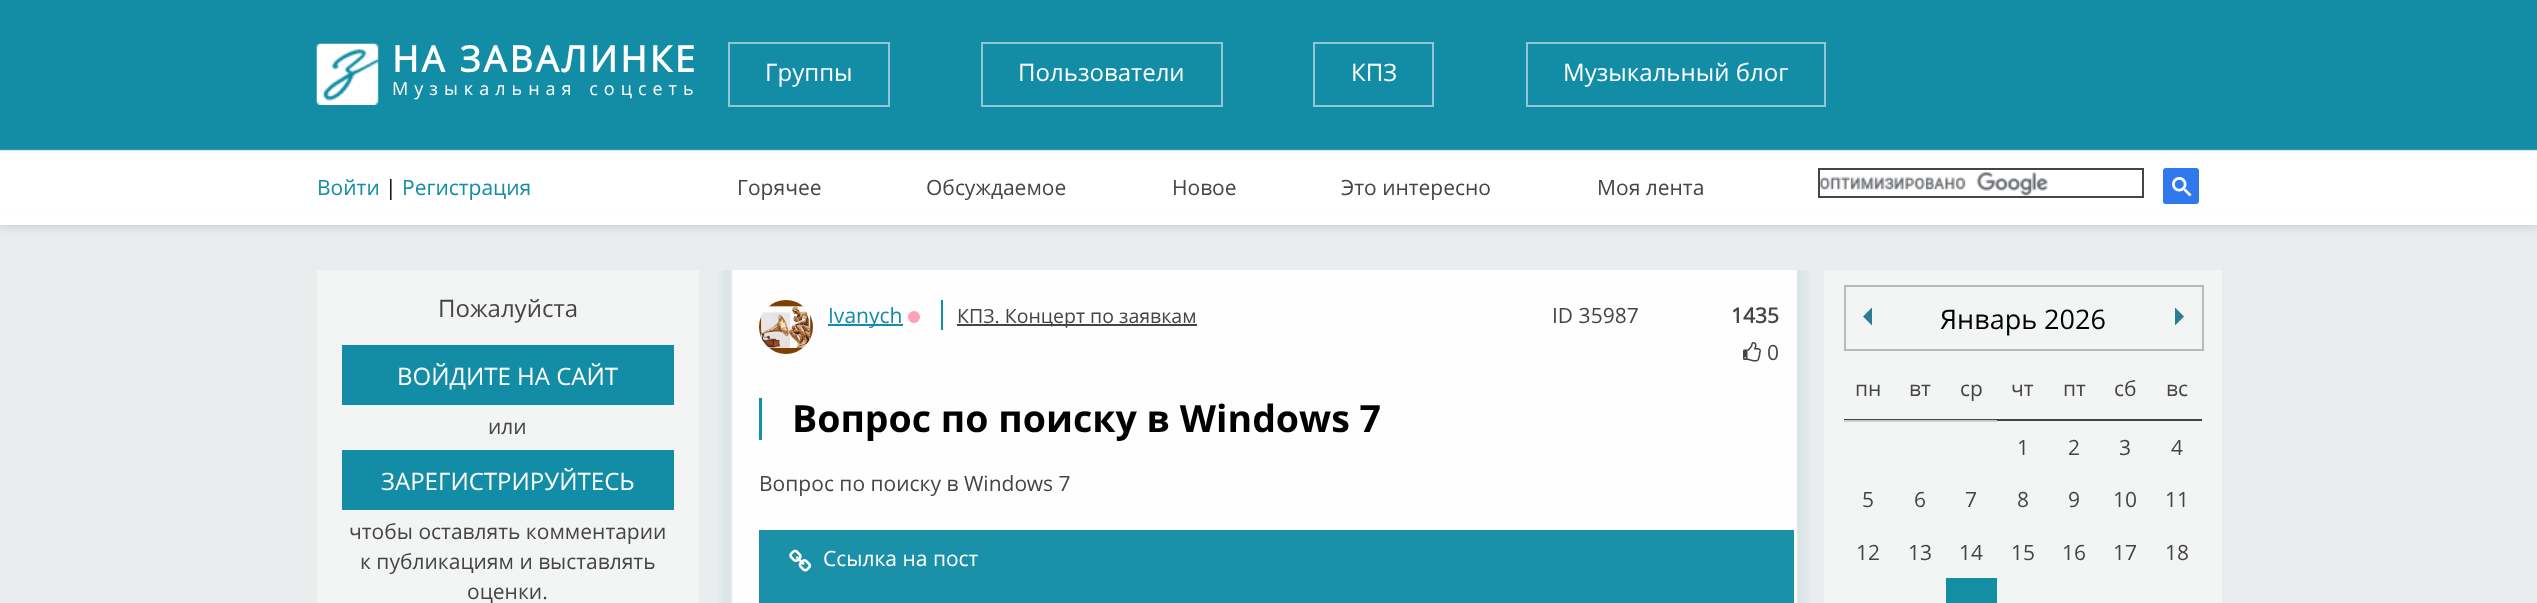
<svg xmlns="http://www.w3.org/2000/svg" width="2537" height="603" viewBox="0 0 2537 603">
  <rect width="100%" height="100%" fill="rgb(233,237,238)"/>
  <rect x="0" y="2" width="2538" height="225" fill="rgb(204,204,204)" filter="blur(4px)"/>
  <image x="0" y="0" width="2537" height="225" href="pic1.png"/>
  <image x="316" y="43" width="63" height="62" href="pic2.png"/>
  <text x="392" y="72" font-family="Open Sans" font-size="36" font-weight="bold" letter-spacing="3" fill="rgb(255,255,255)">НА ЗАВАЛИНКЕ</text>
  <text x="392" y="95" word-spacing="1" font-family="'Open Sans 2'" font-size="18" letter-spacing="6" fill="rgb(255,255,255)">Музыкальная соцсеть</text>
  <rect x="729" y="43" width="160" height="63" fill="none" stroke="rgb(145,198,212)" stroke-width="2"/>
  <text x="765" y="81" font-family="'Open Sans 2'" font-size="24" fill="rgb(255,255,255)">Группы</text>
  <rect x="982" y="43" width="240" height="63" fill="none" stroke="rgb(145,198,212)" stroke-width="2"/>
  <text x="1018" y="81" font-family="'Open Sans 2'" font-size="24" fill="rgb(255,255,255)">Пользователи</text>
  <rect x="1314" y="43" width="119" height="63" fill="none" stroke="rgb(145,198,212)" stroke-width="2"/>
  <text x="1351" y="81" font-family="'Open Sans 2'" font-size="24" fill="rgb(255,255,255)">КПЗ</text>
  <rect x="1527" y="43" width="298" height="63" fill="none" stroke="rgb(145,198,212)" stroke-width="2"/>
  <text x="1563" y="81" font-family="'Open Sans 2'" font-size="24" fill="rgb(255,255,255)">Музыкальный блог</text>
  <text x="317" y="195" font-family="'Open Sans 2'" font-size="21" fill="rgb(19,141,165)">Войти</text>
  <text x="385" y="195" font-family="'Open Sans 2'" font-size="21" fill="rgb(1,1,1)">|</text>
  <text x="402" y="195" font-family="'Open Sans 2'" font-size="21" fill="rgb(19,141,165)">Регистрация</text>
  <g font-family="'Open Sans 2'" font-size="21" fill="rgb(69,69,69)">
    <text x="737" y="195">Горячее</text>
    <text x="926" y="195">Обсуждаемое</text>
    <text x="1172" y="195">Новое</text>
    <text x="1341" y="195">Это интересно</text>
    <text x="1597" y="195">Моя лента</text>
  </g>
  <image x="1820" y="172" width="228" height="24" href="pic3.png"/>
  <rect x="1819" y="169" width="324" height="28" fill="none" stroke="rgb(69,69,69)" stroke-width="2"/>
  <rect x="2163" y="168" width="36" height="36" rx="3" fill="rgb(48,121,237)"/>
  <image x="2172" y="177" width="20" height="20" href="pic4.png"/>
  <rect x="317" y="270" width="382" height="333" fill="rgb(243,245,244)"/>
  <text x="438" y="317" font-family="Open Sans" font-size="24" fill="rgb(69,69,69)">Пожалуйста</text>
  <rect x="342" y="345" width="332" height="60" fill="rgb(19,141,165)"/>
  <text x="397" y="385" font-family="'Open Sans 2'" font-size="24" fill="rgb(255,255,255)">ВОЙДИТЕ НА САЙТ</text>
  <text x="488" y="434" font-family="'Open Sans 2'" font-size="21" fill="rgb(69,69,69)">или</text>
  <rect x="342" y="450" width="332" height="60" fill="rgb(19,141,165)"/>
  <text x="381" y="490" font-family="'Open Sans 2'" font-size="24" fill="rgb(255,255,255)">ЗАРЕГИСТРИРУЙТЕСЬ</text>
  <g font-family="'Open Sans 2'" font-size="21" fill="rgb(69,69,69)">
    <text x="349" y="539">чтобы оставлять комментарии</text>
    <text x="360" y="569">к публикациям и выставлять</text>
    <text x="467" y="599">оценки.</text>
  </g>
  <image x="718" y="270" width="1092" height="333" href="pic5.png"/>
  <image x="759" y="300" width="54" height="54" href="pic6.png"/>
  <rect x="828" y="324" width="75" height="2" fill="rgb(19,141,165)"/>
  <text x="828" y="323" font-family="'Open Sans 2'" font-size="21" fill="rgb(19,141,165)">Ivanych</text>
  <circle cx="914" cy="317" r="6" fill="rgb(255,160,185)"/>
  <rect x="941" y="300" width="2" height="30" fill="rgb(19,141,165)"/>
  <rect x="957" y="324" width="240" height="2" fill="rgb(69,69,69)"/>
  <text x="957" y="323" font-family="'Open Sans 2'" font-size="19.5" fill="rgb(69,69,69)">КПЗ. Концерт по заявкам</text>
  <text x="1552" y="323" font-family="'Open Sans 2'" font-size="21" fill="rgb(69,69,69)">ID 35987</text>
  <text x="1731" y="323" font-family="Open Sans" font-size="21" font-weight="bold" fill="rgb(69,69,69)">1435</text>
  <image x="1743" y="342" width="18" height="20" href="pic7.png"/>
  <text x="1767" y="360" font-family="'Open Sans 2'" font-size="21" fill="rgb(69,69,69)">0</text>
  <rect x="759" y="398" width="3" height="42" fill="rgb(15,145,167)"/>
  <text x="792" y="432" font-family="'Open Sans 2'" font-size="37.5" font-weight="bold" fill="rgb(1,1,1)">Вопрос по поиску в Windows 7</text>
  <text x="759" y="491" font-family="'Open Sans 2'" font-size="21" fill="rgb(69,69,69)">Вопрос по поиску в Windows 7</text>
  <rect x="759" y="530" width="1035" height="73" fill="rgb(26,145,168)"/>
  <image x="789" y="549" width="23" height="23" href="pic8.png"/>
  <text x="823" y="566" font-family="'Open Sans 2'" font-size="21" fill="rgb(255,255,255)">Ссылка на пост</text>
  <rect x="1824" y="270" width="398" height="333" fill="rgb(243,245,244)"/>
  <rect x="1845" y="286" width="358" height="64" fill="none" stroke="rgb(185,187,186)" stroke-width="2"/>
  <path d="M1872 307.5V325.5L1863 316.5Z" fill="rgb(43,125,149)"/>
  <path d="M2175 325.5V307.5L2184 316.5Z" fill="rgb(43,125,149)"/>
  <text x="1940" y="329" font-family="Open Sans" font-size="27" fill="rgb(1,1,1)">Январь 2026</text>
  <rect x="1844" y="419" width="153" height="1" fill="rgb(67,69,68)"/>
  <g font-family="'Open Sans 2'" font-size="21" fill="rgb(69,69,69)">
    <text x="1855" y="396">пн</text>
    <text x="1909" y="396">вт</text>
    <text x="1960" y="396">ср</text>
  </g>
  <rect x="1997" y="419" width="205" height="2" fill="rgb(67,69,68)"/>
  <g font-family="'Open Sans 2'" font-size="21" fill="rgb(69,69,69)">
    <text x="2011" y="396">чт</text>
    <text x="2063" y="396">пт</text>
    <text x="2114" y="396">сб</text>
    <text x="2166" y="396">вс</text>
  </g>
  <rect x="1844" y="420" width="153" height="2" fill="rgb(204,204,204)"/>
  <g font-family="'Open Sans 2'" font-size="21" fill="rgb(69,69,69)">
    <text x="2017" y="455">1</text>
    <text x="2068" y="455">2</text>
    <text x="2119" y="455">3</text>
    <text x="2171" y="455">4</text>
    <text x="1862" y="507">5</text>
    <text x="1914" y="507">6</text>
    <text x="1965" y="507">7</text>
    <text x="2017" y="507">8</text>
    <text x="2068" y="507">9</text>
    <text x="2113" y="507">10</text>
    <text x="2165" y="507">11</text>
    <text x="1856" y="560">12</text>
    <text x="1908" y="560">13</text>
    <text x="1959" y="560">14</text>
    <text x="2011" y="560">15</text>
    <text x="2062" y="560">16</text>
    <text x="2113" y="560">17</text>
    <text x="2165" y="560">18</text>
  </g>
  <rect x="1946" y="578" width="51" height="25" fill="rgb(20,142,163)"/>
</svg>
